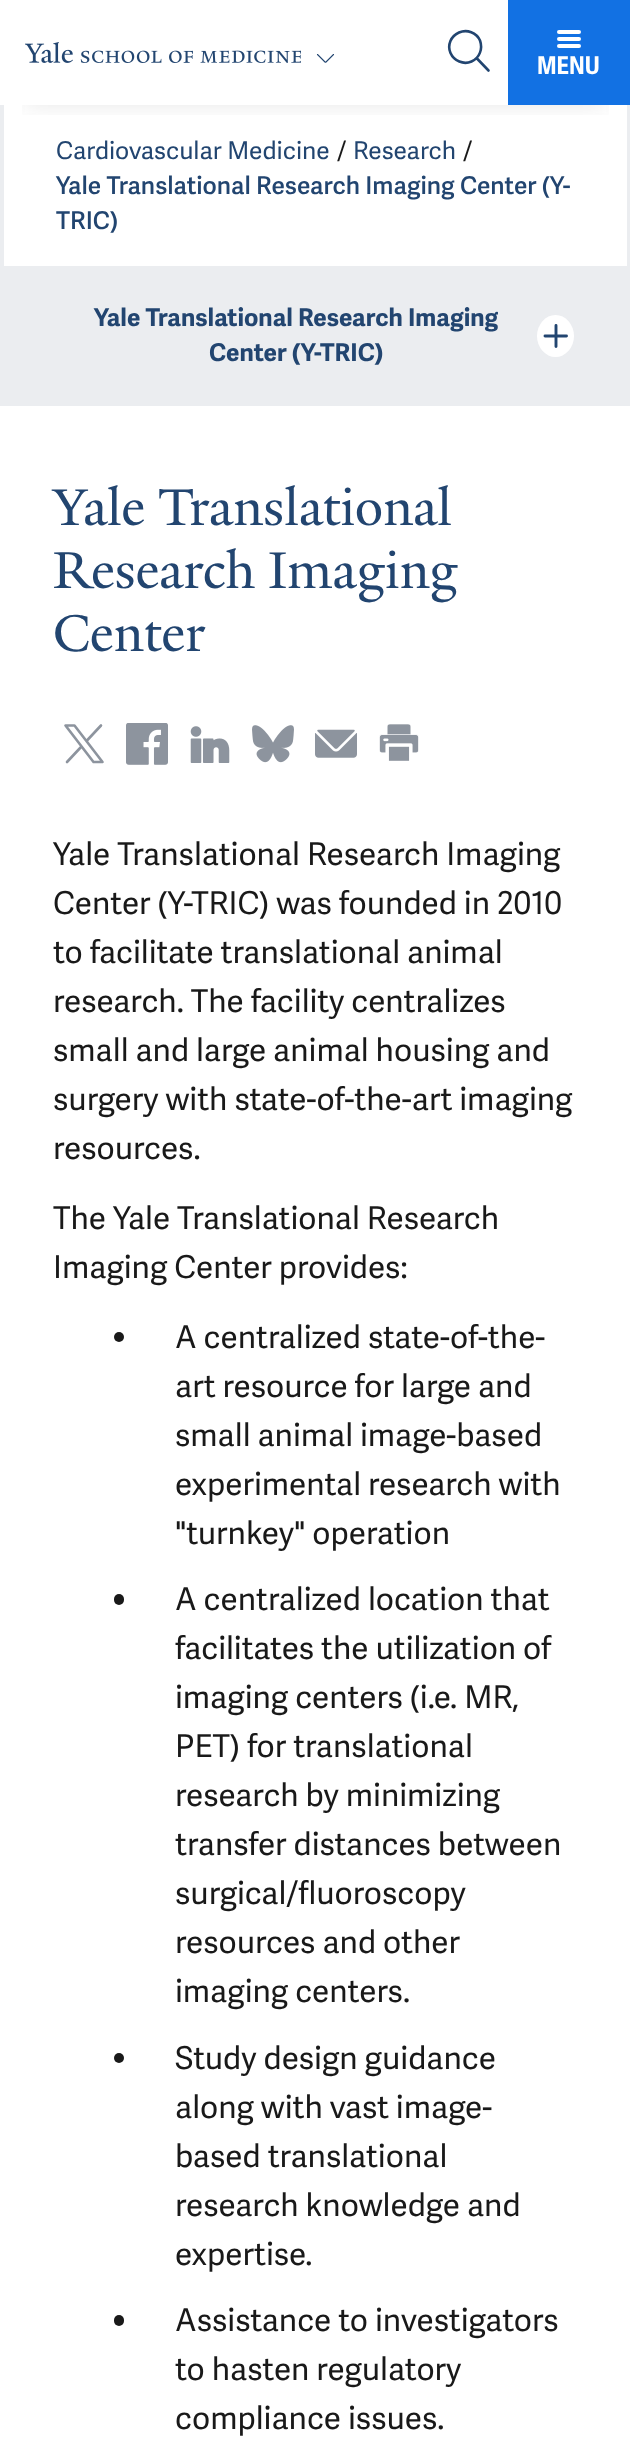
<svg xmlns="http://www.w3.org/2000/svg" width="630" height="2464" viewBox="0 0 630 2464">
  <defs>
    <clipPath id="clip1"><rect x="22" y="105" width="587" height="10"/></clipPath>
  </defs>
  <rect width="100%" height="100%" fill="rgb(255,255,255)"/>
  <rect x="627" y="105" width="3" height="301" fill="rgb(235,237,240)"/>
  <rect x="0" y="105" width="4" height="301" fill="rgb(235,237,240)"/>
  <g clip-path="url(#clip1)">
    <rect x="25" y="49" width="581" height="56" fill="rgba(25,25,25,0.1)" filter="blur(12px)"/>
  </g>
  <image x="25" y="42" width="276" height="21" href="pic1.png"/>
  <path d="M333.5 54.5L326 62C325.5 62.5 325.5 62.5 325 62L317.5 54.5" fill="none" stroke="rgb(34,69,112)" stroke-width="1.1" stroke-linecap="round" stroke-linejoin="round"/>
  <path d="M459 32.5C467 29 476.5 32.5 480 40.5C483 49 479.5 58 471.5 61.5C463.5 65 454 61 450.5 53C447 45 451 36 459 32.5ZM476.5 58L488.5 70.5" fill="none" stroke="rgb(34,69,112)" stroke-width="2.6" stroke-linecap="round" stroke-linejoin="round"/>
  <rect x="508" y="0" width="122" height="105" fill="rgb(18,113,227)"/>
  <rect x="557" y="30" width="24" height="4" rx="2" fill="rgb(255,255,255)"/>
  <rect x="557" y="37" width="24" height="4" rx="2" fill="rgb(255,255,255)"/>
  <rect x="557" y="44" width="24" height="4" rx="2" fill="rgb(255,255,255)"/>
  <text x="537" y="74" font-family="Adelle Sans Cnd" font-size="24.5" font-weight="bold" fill="rgb(255,255,255)">MENU</text>
  <text x="56" y="159" font-family="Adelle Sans" font-size="24.5" fill="rgb(34,69,112)">Cardiovascular Medicine</text>
  <text x="337" y="159" font-family="Adelle Sans" font-size="24.5" fill="rgb(25,25,25)">/</text>
  <text x="353" y="159" font-family="Adelle Sans" font-size="24.5" fill="rgb(34,69,112)">Research</text>
  <text x="463" y="159" font-family="Adelle Sans" font-size="24.5" fill="rgb(25,25,25)">/</text>
  <g font-family="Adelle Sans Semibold" font-size="24.5" font-weight="600" fill="rgb(34,69,112)">
    <text>
      <tspan x="56" y="194">Yale Translational Research Imaging Center (Y-</tspan>
      <tspan x="56" y="229">TRIC)</tspan>
    </text>
  </g>
  <rect x="4" y="266" width="623" height="140" fill="rgb(235,237,240)"/>
  <g font-family="Adelle Sans" font-size="24.5" font-weight="bold" fill="rgb(34,69,112)">
    <text x="94" y="326">Yale Translational Research Imaging</text>
    <text x="209" y="361">Center (Y-TRIC)</text>
  </g>
  <ellipse cx="555.5" cy="336" rx="18.5" ry="21" fill="rgb(255,255,255)"/>
  <path d="M556 325.5V346.5M566.5 336H545" fill="none" stroke="rgb(34,69,112)" stroke-width="2.9" stroke-linecap="round" stroke-linejoin="round"/>
  <g font-family="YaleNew" font-size="56" fill="rgb(34,69,112)">
    <text>
      <tspan x="53" y="525">Yale Translational</tspan>
      <tspan x="53" y="588">Research Imaging</tspan>
      <tspan x="53" y="651">Center</tspan>
    </text>
  </g>
  <path d="M93.5 762L65.5 725.5H74.5L102.5 762ZM101 725.5L86.5 741M67 762L81.5 746.5" fill="none" stroke="rgb(141,148,158)" stroke-width="2.6" stroke-linecap="round" stroke-linejoin="round"/>
  <image x="126" y="723" width="42" height="42" href="pic2.png"/>
  <image x="190" y="726" width="40" height="37" href="pic3.png"/>
  <image x="252" y="725" width="42" height="38" href="pic4.png"/>
  <image x="315" y="729" width="42" height="29" href="pic5.png"/>
  <image x="379" y="724" width="40" height="37" href="pic6.png"/>
  <g font-family="Adelle Sans" font-size="31.5" fill="rgb(25,25,25)">
    <text>
      <tspan x="53" y="865">Yale Translational Research Imaging</tspan>
      <tspan x="53" y="914">Center (Y-TRIC) was founded in 2010</tspan>
      <tspan x="53" y="963">to facilitate translational animal</tspan>
      <tspan x="53" y="1012">research. The facility centralizes</tspan>
      <tspan x="53" y="1061">small and large animal housing and</tspan>
      <tspan x="53" y="1110">surgery with state-of-the-art imaging</tspan>
      <tspan x="53" y="1159">resources.</tspan>
    </text>
    <text>
      <tspan x="53" y="1229">The Yale Translational Research</tspan>
      <tspan x="53" y="1278">Imaging Center provides:</tspan>
    </text>
  </g>
  <circle cx="119" cy="1337" r="5" fill="rgb(25,25,25)"/>
  <g font-family="Adelle Sans" font-size="31.5" fill="rgb(25,25,25)">
    <text>
      <tspan x="175" y="1348">A centralized state-of-the-</tspan>
      <tspan x="175" y="1397">art resource for large and</tspan>
      <tspan x="175" y="1446">small animal image-based</tspan>
      <tspan x="175" y="1495">experimental research with</tspan>
      <tspan x="175" y="1544">"turnkey" operation</tspan>
    </text>
  </g>
  <rect x="114" y="1594" width="10" height="11" rx="5" fill="rgb(25,25,25)"/>
  <g font-family="Adelle Sans" font-size="31.5" fill="rgb(25,25,25)">
    <text>
      <tspan x="175" y="1610">A centralized location that</tspan>
      <tspan x="175" y="1659">facilitates the utilization of</tspan>
      <tspan x="175" y="1708">imaging centers (i.e. MR,</tspan>
      <tspan x="175" y="1757">PET) for translational</tspan>
      <tspan x="175" y="1806">research by minimizing</tspan>
      <tspan x="175" y="1855">transfer distances between</tspan>
      <tspan x="175" y="1904">surgical/fluoroscopy</tspan>
      <tspan x="175" y="1953">resources and other</tspan>
      <tspan x="175" y="2002">imaging centers.</tspan>
    </text>
  </g>
  <circle cx="119" cy="2058" r="5" fill="rgb(25,25,25)"/>
  <g font-family="Adelle Sans" font-size="31.5" fill="rgb(25,25,25)">
    <text>
      <tspan x="175" y="2069">Study design guidance</tspan>
      <tspan x="175" y="2118">along with vast image-</tspan>
      <tspan x="175" y="2167">based translational</tspan>
      <tspan x="175" y="2216">research knowledge and</tspan>
      <tspan x="175" y="2265">expertise.</tspan>
    </text>
  </g>
  <rect x="114" y="2315" width="10" height="11" rx="5" fill="rgb(25,25,25)"/>
  <g font-family="Adelle Sans" font-size="31.5" fill="rgb(25,25,25)">
    <text>
      <tspan x="175" y="2331">Assistance to investigators</tspan>
      <tspan x="175" y="2380">to hasten regulatory</tspan>
      <tspan x="175" y="2429">compliance issues.</tspan>
    </text>
  </g>
</svg>
